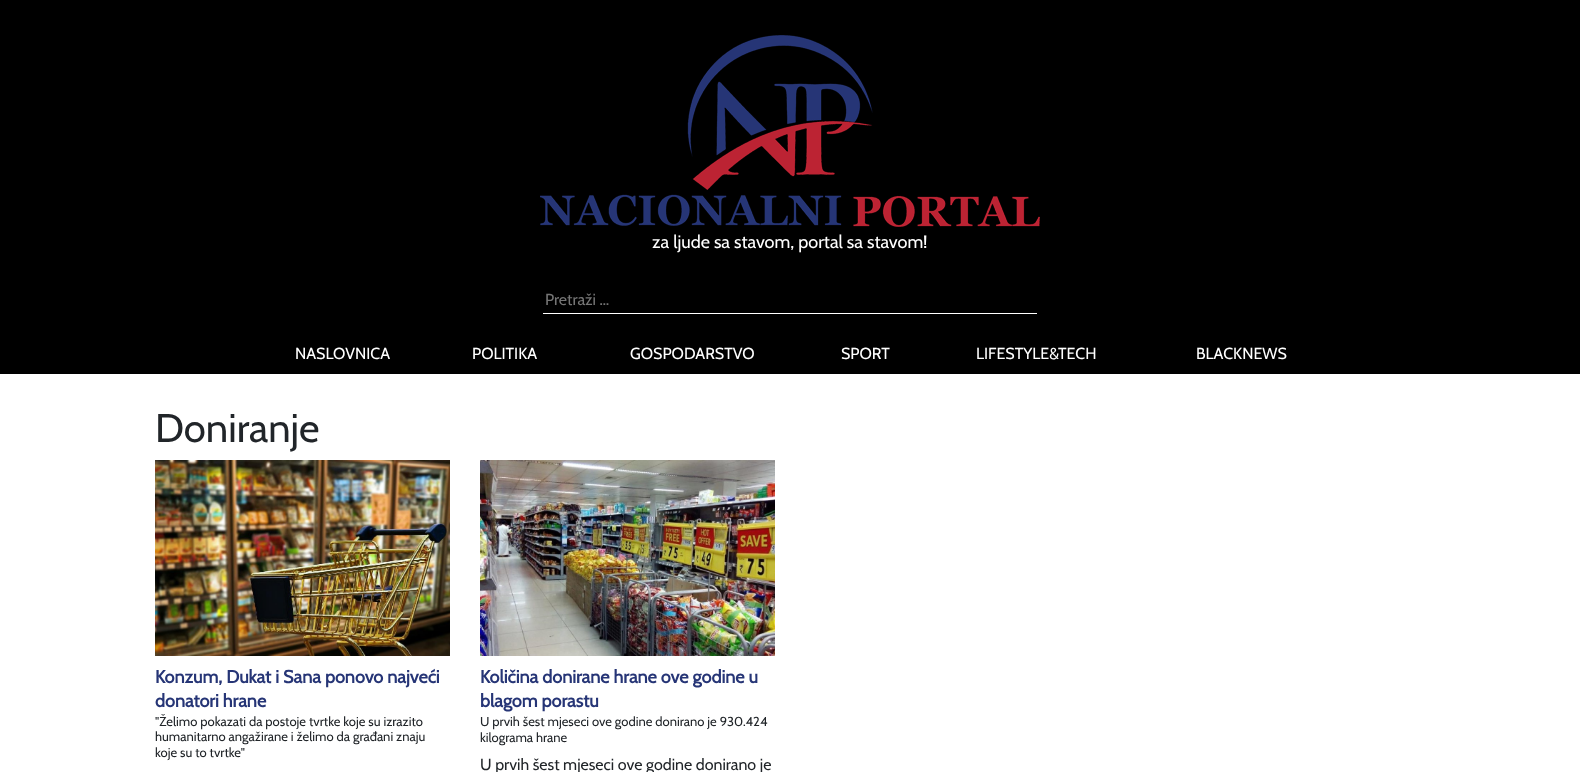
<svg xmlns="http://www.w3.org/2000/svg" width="1580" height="772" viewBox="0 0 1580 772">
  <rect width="100%" height="100%" fill="rgb(255,255,255)"/>
  <rect x="0" y="0" width="1580" height="374" fill="rgb(0,0,0)"/>
  <image x="540" y="35" width="500" height="192" href="pic1.png"/>
  <text x="652" y="248" font-family="Cabin" font-size="18" fill="rgb(255,255,255)">za ljude sa stavom, portal sa stavom!</text>
  <rect x="543" y="313" width="494" height="1" fill="rgb(255,255,255)"/>
  <text x="545" y="305" font-family="Cabin" font-size="16" fill="rgb(117,117,117)">Pretraži …</text>
  <g font-family="Cabin" font-size="16" fill="rgb(255,255,255)">
    <text x="295" y="359">NASLOVNICA</text>
    <text x="472" y="359">POLITIKA</text>
    <text x="630" y="359">GOSPODARSTVO</text>
    <text x="841" y="359">SPORT</text>
    <text x="976" y="359">LIFESTYLE&amp;TECH</text>
    <text x="1196" y="359">BLACKNEWS</text>
  </g>
  <text x="155" y="442" font-family="Cabin" font-size="40" fill="rgb(33,37,41)">Doniranje</text>
  <image x="155" y="460" width="295" height="196" href="pic2.png"/>
  <g font-family="Cabin" font-size="18" font-weight="bold" fill="rgb(38,53,118)">
    <text>
      <tspan x="155" y="683">Konzum, Dukat i Sana ponovo najveći</tspan>
      <tspan x="155" y="707">donatori hrane</tspan>
    </text>
  </g>
  <g font-family="Cabin" font-size="13" fill="rgb(33,37,41)">
    <text>
      <tspan x="155" y="726">"Želimo pokazati da postoje tvrtke koje su izrazito</tspan>
      <tspan x="155" y="741">humanitarno angažirane i želimo da građani znaju</tspan>
      <tspan x="155" y="757">koje su to tvrtke"</tspan>
    </text>
  </g>
  <image x="480" y="460" width="295" height="196" href="pic3.png"/>
  <g font-family="Cabin" font-size="18" font-weight="bold" fill="rgb(38,53,118)">
    <text>
      <tspan x="480" y="683">Količina donirane hrane ove godine u</tspan>
      <tspan x="480" y="707">blagom porastu</tspan>
    </text>
  </g>
  <g font-family="Cabin" font-size="13" fill="rgb(33,37,41)">
    <text>
      <tspan x="480" y="726">U prvih šest mjeseci ove godine donirano je 930.424</tspan>
      <tspan x="480" y="742">kilograma hrane</tspan>
    </text>
  </g>
  <text x="480" y="770" font-family="Cabin" font-size="16" fill="rgb(33,37,41)">U prvih šest mjeseci ove godine donirano je</text>
</svg>
